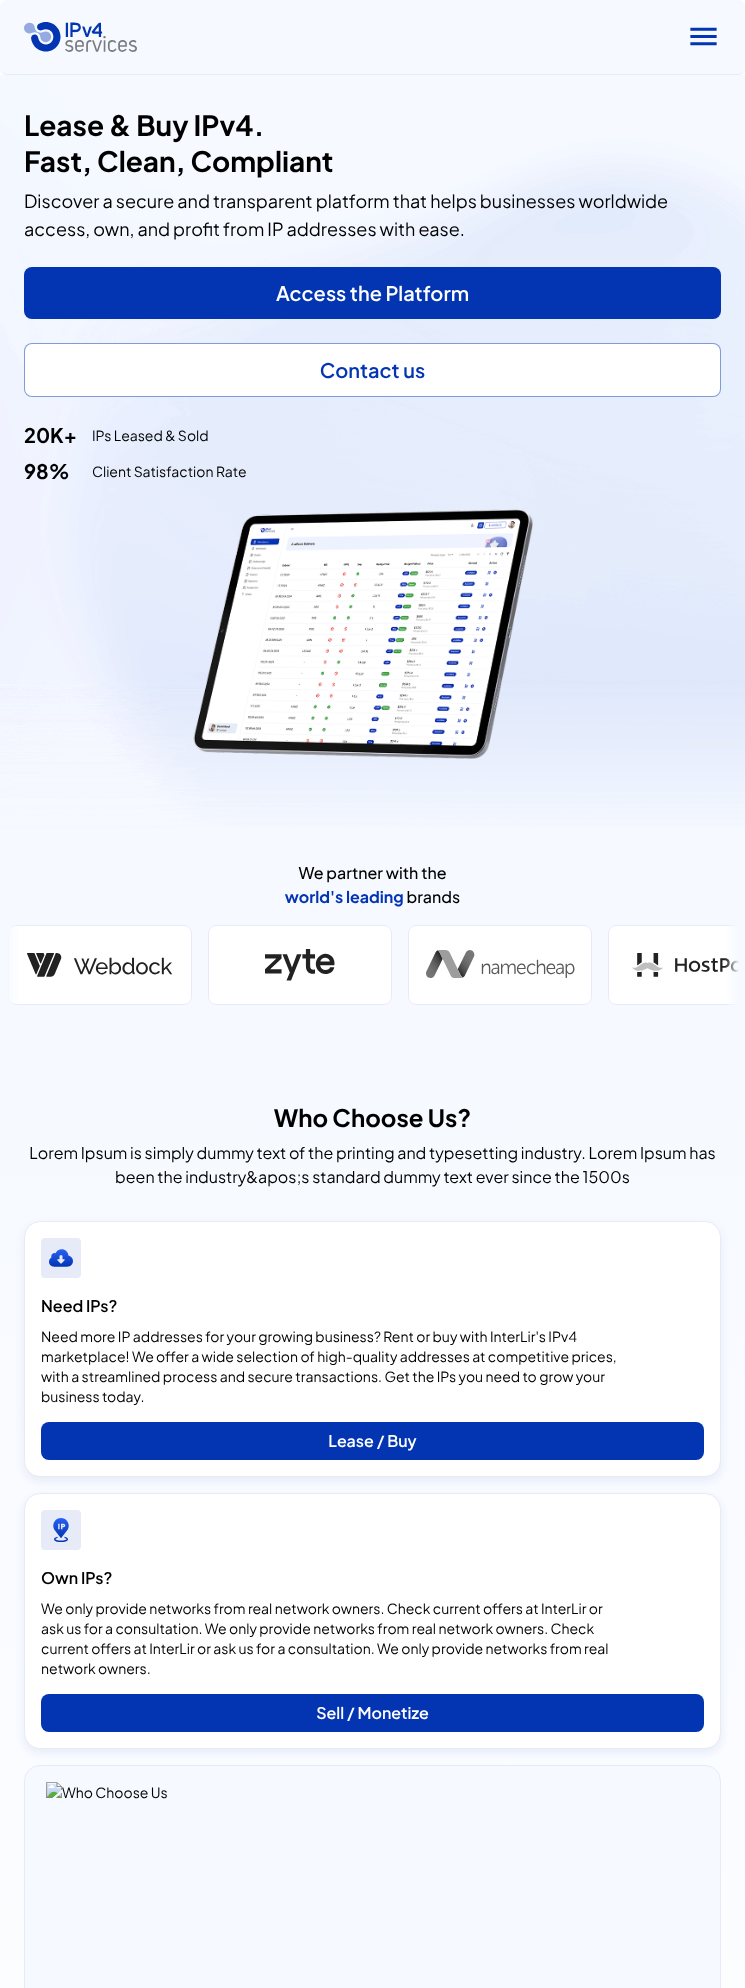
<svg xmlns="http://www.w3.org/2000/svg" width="745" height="1988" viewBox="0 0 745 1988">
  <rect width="100%" height="100%" fill="rgb(255,255,255)"/>
  <image x="0" y="0" width="745" height="1988" href="pic1.png"/>
</svg>
